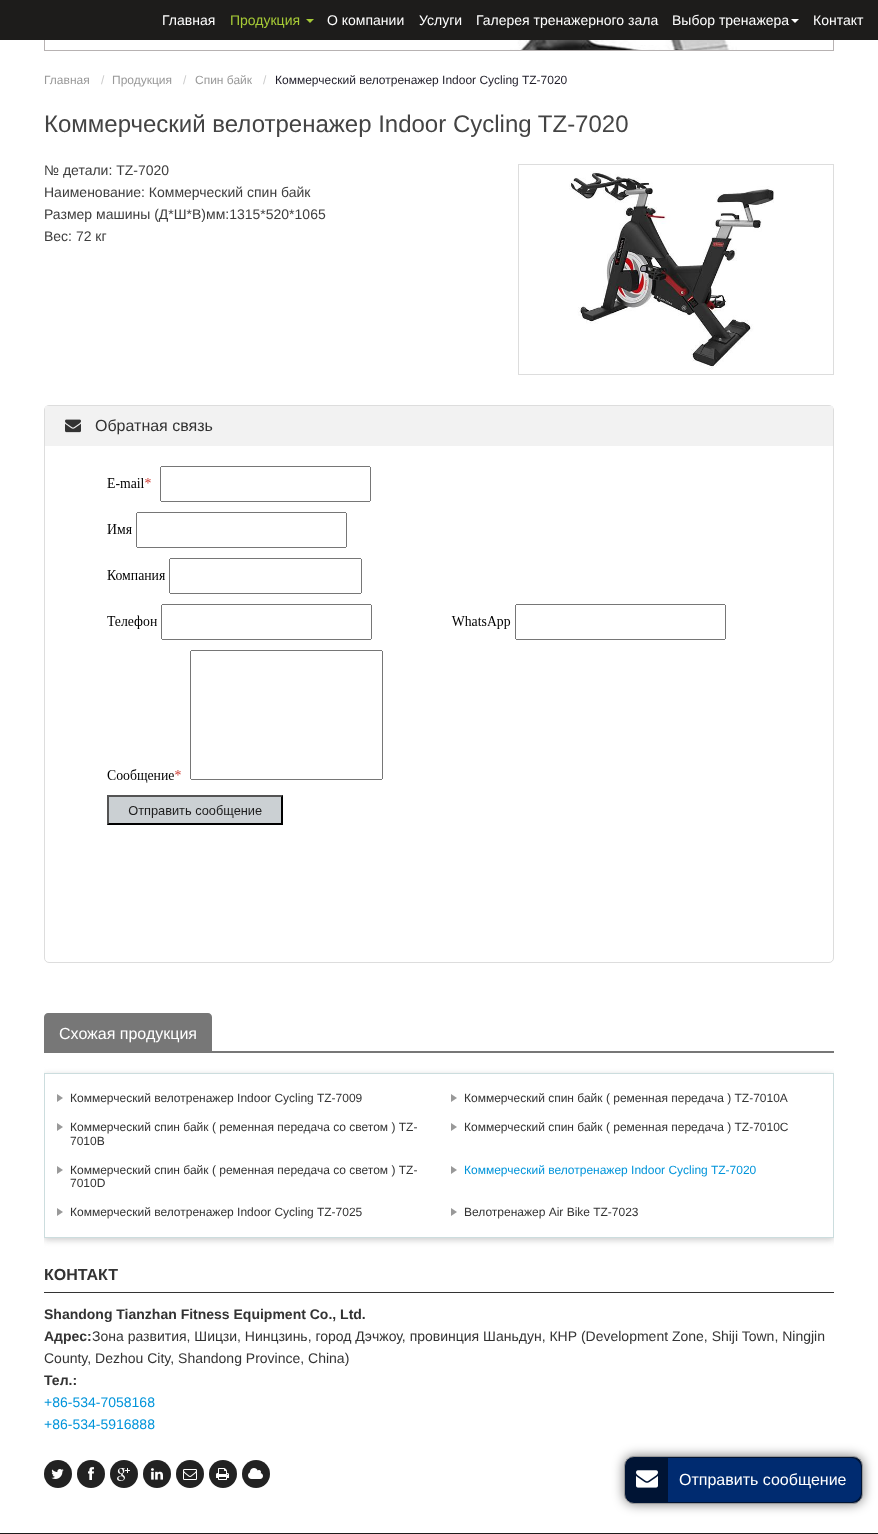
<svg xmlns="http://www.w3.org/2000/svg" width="878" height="1534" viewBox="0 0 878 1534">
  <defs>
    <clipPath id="clip1"><rect x="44" y="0" width="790" height="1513"/></clipPath>
    <clipPath id="clip2"><path d="M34 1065H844V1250H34ZM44 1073H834V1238H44Z" clip-rule="evenodd"/></clipPath>
  </defs>
  <rect width="100%" height="100%" fill="rgb(255,255,255)"/>
  <image x="510" y="40" width="227" height="10" href="pic1.png"/>
  <rect x="44.5" y="-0.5" width="789" height="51" fill="none" stroke="rgb(183,178,178)"/>
  <rect x="0" y="0" width="878" height="40" fill="rgb(29,28,27)"/>
  <text x="162" y="25" font-family="Liberation Sans" font-size="14" fill="rgb(255,255,255)">Главная</text>
  <text x="230" y="25" font-family="Liberation Sans" font-size="14" fill="rgb(166,202,54)">Продукция</text>
  <path d="M306 19H314L310 23Z" fill="rgb(166,202,54)"/>
  <g font-family="Liberation Sans" font-size="14" fill="rgb(255,255,255)">
    <text x="327" y="25">О компании</text>
    <text x="419" y="25">Услуги</text>
    <text x="476" y="25">Галерея тренажерного зала</text>
    <text x="672" y="25">Выбор тренажера</text>
  </g>
  <path d="M791 19H799L795 23Z" fill="rgb(255,255,255)"/>
  <text x="813" y="25" font-family="Liberation Sans" font-size="14" fill="rgb(255,255,255)">Контакт</text>
  <text x="44" y="84" font-family="Liberation Sans" font-size="12" fill="rgb(153,153,153)">Главная</text>
  <text x="101" y="84" font-family="Liberation Sans" font-size="12" fill="rgb(204,204,204)">/</text>
  <text x="112" y="84" font-family="Liberation Sans" font-size="12" fill="rgb(153,153,153)">Продукция</text>
  <text x="183" y="84" font-family="Liberation Sans" font-size="12" fill="rgb(204,204,204)">/</text>
  <text x="195" y="84" font-family="Liberation Sans" font-size="12" fill="rgb(153,153,153)">Спин байк</text>
  <text x="263" y="84" font-family="Liberation Sans" font-size="12" fill="rgb(204,204,204)">/</text>
  <text x="275" y="84" font-family="Liberation Sans" font-size="12" fill="rgb(31,29,41)">Коммерческий велотренажер Indoor Cycling TZ-7020</text>
  <text x="44" y="132" font-family="Liberation Sans" font-size="24" fill="rgb(68,68,68)">Коммерческий велотренажер Indoor Cycling TZ-7020</text>
  <g font-family="Liberation Sans" font-size="14" fill="rgb(61,61,61)">
    <text>
      <tspan x="44" y="175">№ детали: TZ-7020</tspan>
      <tspan x="44" y="197">Наименование: Коммерческий спин байк</tspan>
      <tspan x="44" y="219">Размер машины (Д*Ш*В)мм:1315*520*1065</tspan>
      <tspan x="44" y="241">Вес: 72 кг</tspan>
    </text>
  </g>
  <rect x="518.5" y="164.5" width="315" height="210" fill="none" stroke="rgb(221,221,221)"/>
  <image x="569" y="171" width="205" height="199" href="pic2.png"/>
  <rect x="44.5" y="405.5" width="789" height="557" rx="4.5" fill="none" stroke="rgb(221,221,221)"/>
  <rect x="45" y="406" width="788" height="40" fill="rgb(242,242,242)"/>
  <image x="65" y="419" width="16" height="14" href="pic3.png"/>
  <text x="95" y="431" font-family="Liberation Sans" font-size="16" fill="rgb(51,51,51)">Обратная связь</text>
  <image x="107" y="466" width="619" height="359" href="pic4.png"/>
  <rect x="44" y="1051" width="790" height="2" fill="rgb(119,119,119)"/>
  <path d="M48 1013H208C210 1013 212 1015 212 1017V1051H44V1017C44 1015 46 1013 48 1013Z" fill="rgb(119,119,119)"/>
  <text x="59" y="1039" font-family="Liberation Sans" font-size="16" fill="rgb(255,255,255)">Схожая продукция</text>
  <g clip-path="url(#clip1)">
    <g clip-path="url(#clip2)">
      <rect x="44" y="1075" width="790" height="165" fill="rgb(204,204,204)" filter="blur(3px)"/>
    </g>
  </g>
  <rect x="44.5" y="1073.5" width="789" height="164" fill="none" stroke="rgb(204,221,222)"/>
  <path d="M57 1102V1094L63 1098Z" fill="rgb(153,153,153)"/>
  <text x="70" y="1102" font-family="Liberation Sans" font-size="12" fill="rgb(51,51,51)">Коммерческий велотренажер Indoor Cycling TZ-7009</text>
  <path d="M451 1102V1094L457 1098Z" fill="rgb(153,153,153)"/>
  <text x="464" y="1102" font-family="Liberation Sans" font-size="12" fill="rgb(51,51,51)">Коммерческий спин байк ( ременная передача ) TZ-7010A</text>
  <path d="M57 1131V1123L63 1127Z" fill="rgb(153,153,153)"/>
  <g font-family="Liberation Sans" font-size="12" fill="rgb(51,51,51)">
    <text>
      <tspan x="70" y="1131">Коммерческий спин байк ( ременная передача со светом ) TZ-</tspan>
      <tspan x="70" y="1145">7010B</tspan>
    </text>
  </g>
  <path d="M451 1131V1123L457 1127Z" fill="rgb(153,153,153)"/>
  <text x="464" y="1131" font-family="Liberation Sans" font-size="12" fill="rgb(51,51,51)">Коммерческий спин байк ( ременная передача ) TZ-7010C</text>
  <path d="M57 1174V1166L63 1170Z" fill="rgb(153,153,153)"/>
  <g font-family="Liberation Sans" font-size="12" fill="rgb(51,51,51)">
    <text>
      <tspan x="70" y="1174">Коммерческий спин байк ( ременная передача со светом ) TZ-</tspan>
      <tspan x="70" y="1187">7010D</tspan>
    </text>
  </g>
  <path d="M451 1174V1166L457 1170Z" fill="rgb(153,153,153)"/>
  <text x="464" y="1174" font-family="Liberation Sans" font-size="12" fill="rgb(0,148,218)">Коммерческий велотренажер Indoor Cycling TZ-7020</text>
  <path d="M57 1216V1208L63 1212Z" fill="rgb(153,153,153)"/>
  <text x="70" y="1216" font-family="Liberation Sans" font-size="12" fill="rgb(51,51,51)">Коммерческий велотренажер Indoor Cycling TZ-7025</text>
  <path d="M451 1216V1208L457 1212Z" fill="rgb(153,153,153)"/>
  <text x="464" y="1216" font-family="Liberation Sans" font-size="12" fill="rgb(51,51,51)">Велотренажер Air Bike TZ-7023</text>
  <rect x="44" y="1292" width="790" height="1" fill="rgb(51,51,51)"/>
  <text x="44" y="1280" font-family="Liberation Sans" font-size="16" font-weight="bold" fill="rgb(51,51,51)">КОНТАКТ</text>
  <g font-family="Liberation Sans" font-size="14" font-weight="bold" fill="rgb(51,51,51)">
    <text>
      <tspan x="44" y="1319">Shandong Tianzhan Fitness Equipment Co., Ltd.</tspan>
      <tspan x="44" y="1341">Адрес:</tspan>
    </text>
  </g>
  <g font-family="Liberation Sans" font-size="14" fill="rgb(51,51,51)">
    <text x="92" y="1341">Зона развития, Шицзи, Нинцзинь, город Дэчжоу, провинция Шаньдун, КНР (Development Zone, Shiji Town, Ningjin</text>
    <text x="44" y="1363">County, Dezhou City, Shandong Province, China)</text>
  </g>
  <text x="44" y="1385" font-family="Liberation Sans" font-size="14" font-weight="bold" fill="rgb(51,51,51)">Тел.:</text>
  <g font-family="Liberation Sans" font-size="14" fill="rgb(0,148,218)">
    <text>
      <tspan x="44" y="1407">+86-534-7058168</tspan>
      <tspan x="44" y="1429">+86-534-5916888</tspan>
    </text>
  </g>
  <circle cx="58" cy="1474" r="14" fill="rgb(34,34,34)"/>
  <image x="51" y="1469" width="13" height="10" href="pic5.png"/>
  <circle cx="91" cy="1474" r="14" fill="rgb(34,34,34)"/>
  <image x="88" y="1467" width="6" height="13" href="pic6.png"/>
  <circle cx="124" cy="1474" r="14" fill="rgb(34,34,34)"/>
  <image x="117" y="1468" width="13" height="13" href="pic7.png"/>
  <circle cx="157" cy="1474" r="14" fill="rgb(34,34,34)"/>
  <image x="151" y="1468" width="12" height="12" href="pic8.png"/>
  <circle cx="190" cy="1474" r="14" fill="rgb(34,34,34)"/>
  <image x="183" y="1469" width="14" height="11" href="pic9.png"/>
  <circle cx="223" cy="1474" r="14" fill="rgb(34,34,34)"/>
  <image x="216" y="1468" width="13" height="12" href="pic10.png"/>
  <circle cx="256" cy="1474" r="14" fill="rgb(34,34,34)"/>
  <image x="248" y="1468" width="15" height="11" href="pic11.png"/>
  <rect x="0" y="1533" width="878" height="1" fill="rgb(29,28,27)"/>
  <rect x="624" y="1456" width="239" height="48" rx="10" fill="rgba(0,0,0,0.5)" filter="blur(6px)"/>
  <rect x="624.5" y="1456.5" width="238" height="47" rx="9.5" fill="rgb(0,20,52)" stroke="rgb(153,153,153)"/>
  <image x="636" y="1470" width="22" height="18" href="pic12.png"/>
  <path d="M668 1458H851C856.5 1458 861 1462.5 861 1468V1492C861 1497.5 856.5 1502 851 1502H668Z" fill="rgb(0,43,112)"/>
  <text x="679" y="1485" font-family="Liberation Sans" font-size="16" fill="rgb(255,255,255)">Отправить сообщение</text>
</svg>
